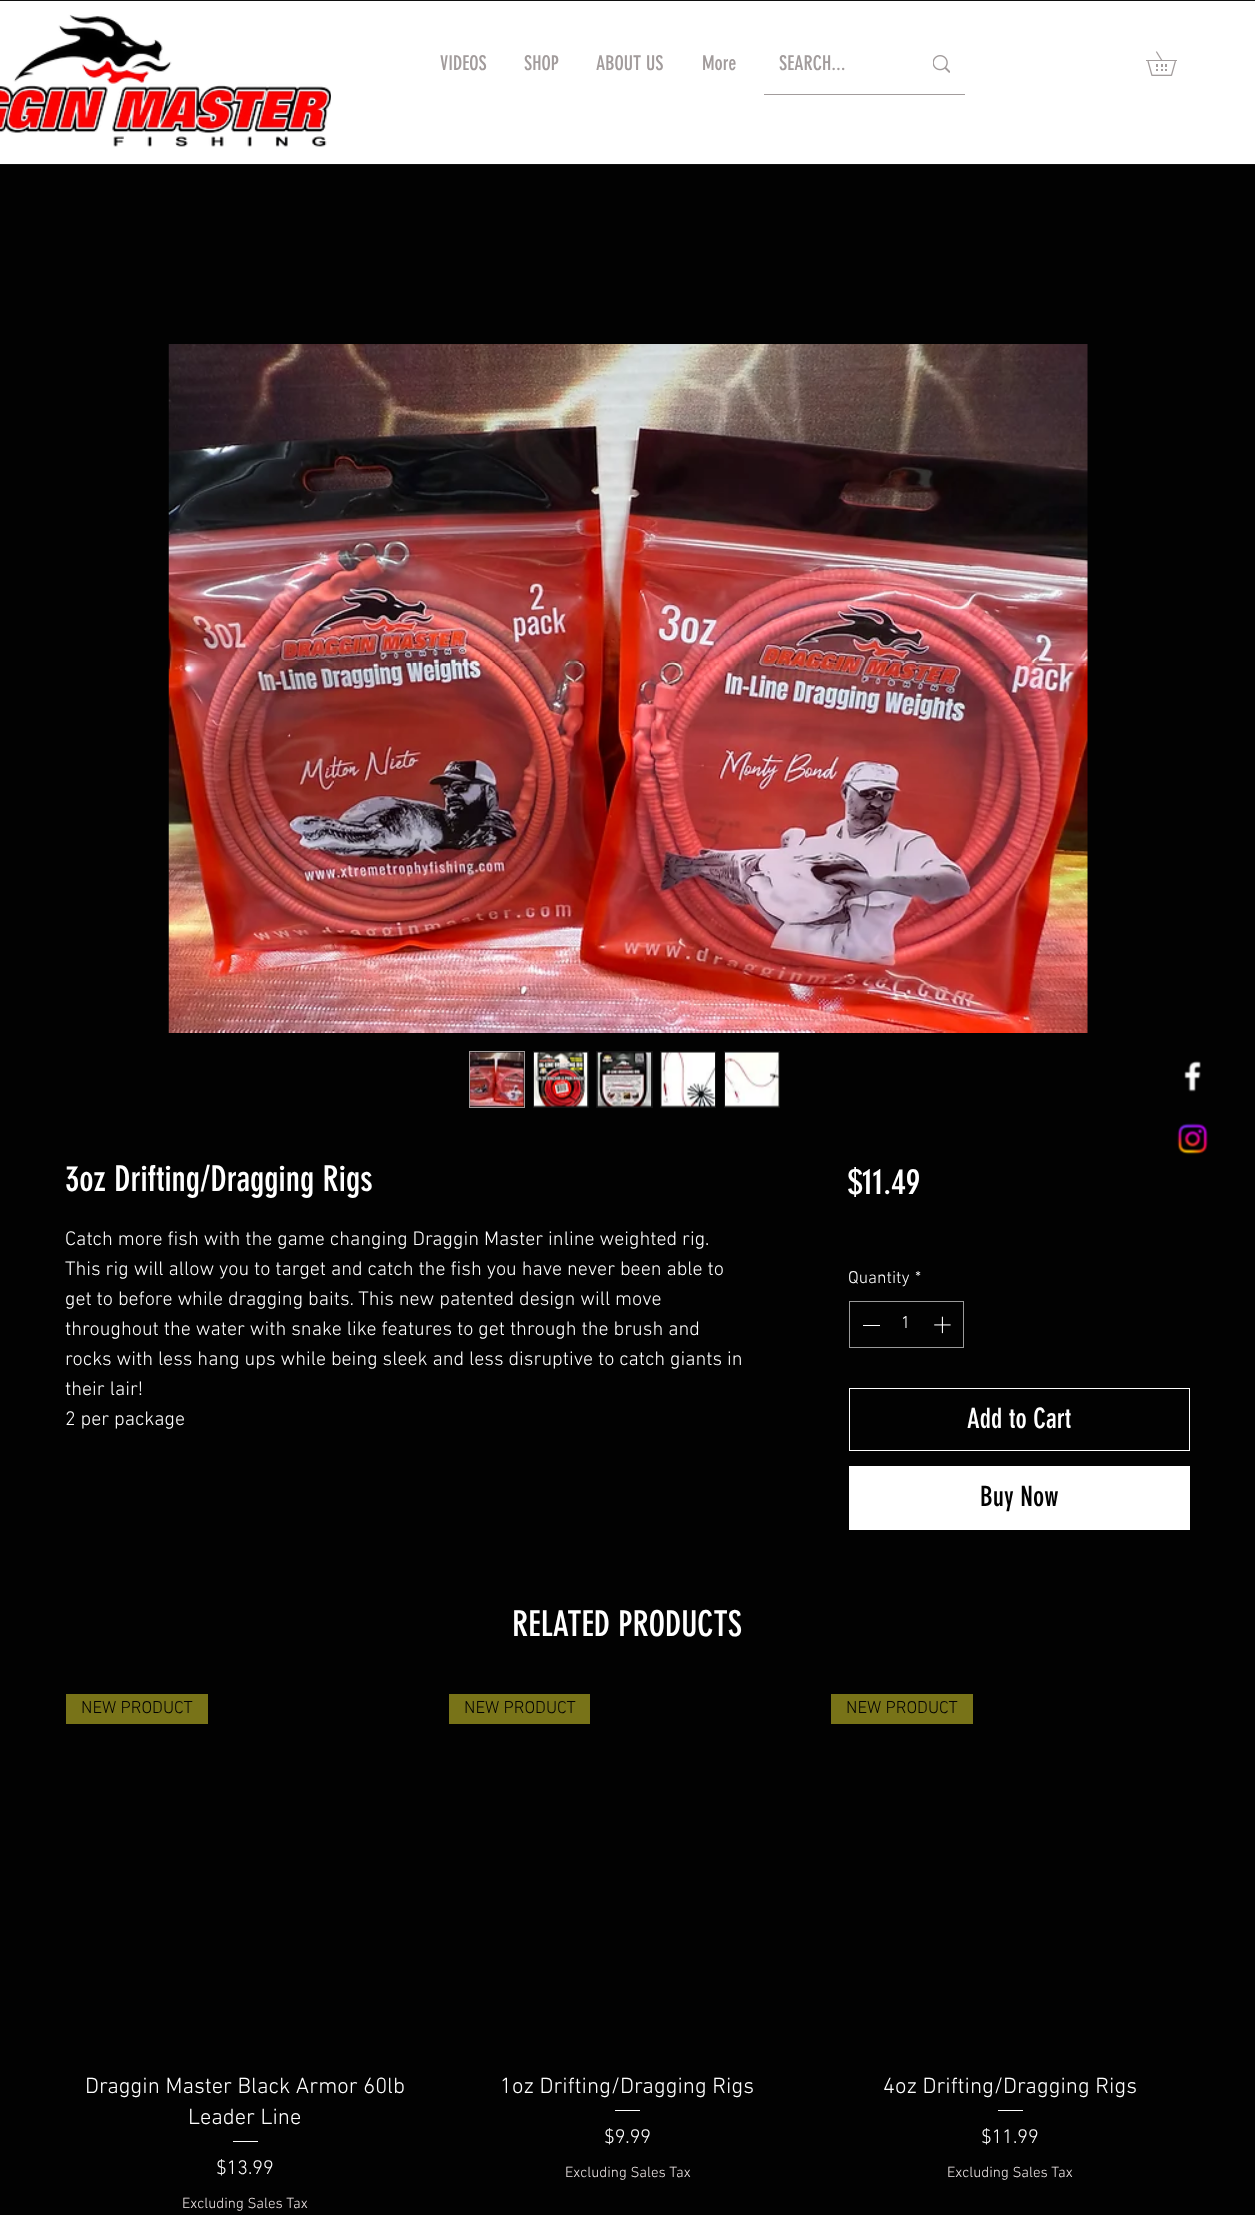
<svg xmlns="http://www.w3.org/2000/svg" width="1255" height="2215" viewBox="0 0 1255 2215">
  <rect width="100%" height="100%" fill="rgb(2,2,2)"/>
  <rect x="0" y="0" width="1255" height="165" fill="rgb(16,16,16)"/>
  <rect x="0" y="1" width="1255" height="163" fill="rgb(255,255,255)"/>
  <image x="0" y="14" width="331" height="133" href="pic1.png"/>
  <g font-family="'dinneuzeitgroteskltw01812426'" font-size="20" fill="rgb(162,156,156)">
    <text x="440" y="70">VIDEOS</text>
    <text x="524" y="70">SHOP</text>
    <text x="596" y="70">ABOUT US</text>
    <text x="702" y="70">More</text>
  </g>
  <rect x="764" y="94" width="201" height="1" fill="rgb(162,156,156)"/>
  <text x="779" y="70" font-family="'dinneuzeitgroteskltw01812426'" font-size="20" fill="rgb(162,156,156)">SEARCH...</text>
  <image x="933" y="55" width="17" height="18" href="pic2.png"/>
  <image x="1146" y="51" width="31" height="25" href="pic3.png"/>
  <image x="1184" y="1060" width="17" height="32" href="pic4.png"/>
  <image x="1177" y="1123" width="31" height="32" href="pic5.png"/>
  <image x="168" y="344" width="920" height="689" href="pic6.png"/>
  <rect x="469.5" y="1051.5" width="55" height="56" fill="rgb(20,20,20)" stroke="rgb(162,156,156)"/>
  <image x="470" y="1052" width="54" height="55" href="pic7.png"/>
  <rect x="533" y="1051" width="56" height="57" fill="rgb(20,20,20)"/>
  <image x="533" y="1052" width="55" height="55" href="pic8.png"/>
  <rect x="596" y="1051" width="57" height="57" fill="rgb(20,20,20)"/>
  <image x="597" y="1052" width="55" height="55" href="pic9.png"/>
  <rect x="660" y="1051" width="56" height="57" fill="rgb(20,20,20)"/>
  <image x="661" y="1052" width="54" height="55" href="pic10.png"/>
  <rect x="724" y="1051" width="56" height="57" fill="rgb(20,20,20)"/>
  <image x="725" y="1052" width="54" height="55" href="pic11.png"/>
  <text x="65" y="1191" font-family="'dinneuzeitgroteskltw01812426'" font-size="35" fill="rgb(255,255,255)">3oz Drifting/Dragging Rigs</text>
  <g font-family="'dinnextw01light'" font-size="20" font-weight="300" fill="rgb(255,255,255)">
    <text>
      <tspan x="65" y="1245">Catch more fish with the game changing Draggin Master inline weighted rig.</tspan>
      <tspan x="65" y="1275">This rig will allow you to target and catch the fish you have never been able to</tspan>
      <tspan x="65" y="1305">get to before while dragging baits. This new patented design will move</tspan>
      <tspan x="65" y="1335">throughout the water with snake like features to get through the brush and</tspan>
      <tspan x="65" y="1365">rocks with less hang ups while being sleek and less disruptive to catch giants in</tspan>
      <tspan x="65" y="1395">their lair!</tspan>
      <tspan x="65" y="1425">2 per package</tspan>
    </text>
  </g>
  <text x="848" y="1194" font-family="'dinneuzeitgroteskltw01812426'" font-size="35" fill="rgb(255,255,255)">$11.49</text>
  <g font-family="'dinnextw01light'" font-size="17.5" font-weight="300" fill="rgb(255,255,255)">
    <text x="848" y="1283">Quantity</text>
    <text x="915" y="1283">*</text>
  </g>
  <rect x="849.5" y="1301.5" width="114" height="46" fill="none" stroke="rgb(154,154,154)"/>
  <rect x="863" y="1325" width="17" height="1" fill="rgb(255,255,255)"/>
  <text x="901" y="1328" font-family="'dinnextw01light'" font-size="17.5" font-weight="300" fill="rgb(255,255,255)">1</text>
  <image x="934" y="1316" width="17" height="18" href="pic12.png"/>
  <rect x="849.5" y="1388.5" width="340" height="62" fill="none" stroke="rgb(255,255,255)"/>
  <text x="967" y="1428" font-family="'dinneuzeitgroteskltw01812426'" font-size="27.5" fill="rgb(255,255,255)">Add to Cart</text>
  <rect x="849" y="1466" width="341" height="64" fill="rgb(255,255,255)"/>
  <text x="980" y="1506" font-family="'dinneuzeitgroteskltw01812426'" font-size="27.5" fill="rgb(2,2,2)">Buy Now</text>
  <text x="512" y="1636" font-family="'dinneuzeitgroteskltw01812426'" font-size="35" fill="rgb(255,255,255)">RELATED PRODUCTS</text>
  <rect x="66" y="1694" width="142" height="30" fill="rgb(120,115,24)"/>
  <text x="81" y="1713" font-family="'dinnextw01light'" font-size="17.5" font-weight="300" fill="rgb(2,2,2)">NEW PRODUCT</text>
  <g font-family="'dinnextw01light'" font-size="22.5" font-weight="300" fill="rgb(255,255,255)">
    <text x="85" y="2093">Draggin Master Black Armor 60lb</text>
    <text x="188" y="2124">Leader Line</text>
  </g>
  <rect x="233" y="2141" width="25" height="1" fill="rgb(255,255,255)"/>
  <text x="216" y="2174" font-family="'dinnextw01light'" font-size="20" font-weight="300" fill="rgb(255,255,255)">$13.99</text>
  <text x="182" y="2208" font-family="'dinnextw01light'" font-size="15" font-weight="300" fill="rgb(238,230,230)">Excluding Sales Tax</text>
  <rect x="449" y="1694" width="141" height="30" fill="rgb(120,115,24)"/>
  <text x="464" y="1713" font-family="'dinnextw01light'" font-size="17.5" font-weight="300" fill="rgb(2,2,2)">NEW PRODUCT</text>
  <text x="500" y="2093" font-family="'dinnextw01light'" font-size="22.5" font-weight="300" fill="rgb(255,255,255)">1oz Drifting/Dragging Rigs</text>
  <rect x="615" y="2110" width="25" height="1" fill="rgb(255,255,255)"/>
  <text x="604" y="2143" font-family="'dinnextw01light'" font-size="20" font-weight="300" fill="rgb(255,255,255)">$9.99</text>
  <text x="565" y="2177" font-family="'dinnextw01light'" font-size="15" font-weight="300" fill="rgb(238,230,230)">Excluding Sales Tax</text>
  <rect x="831" y="1694" width="142" height="30" fill="rgb(120,115,24)"/>
  <text x="846" y="1713" font-family="'dinnextw01light'" font-size="17.5" font-weight="300" fill="rgb(2,2,2)">NEW PRODUCT</text>
  <text x="883" y="2093" font-family="'dinnextw01light'" font-size="22.5" font-weight="300" fill="rgb(255,255,255)">4oz Drifting/Dragging Rigs</text>
  <rect x="998" y="2110" width="25" height="1" fill="rgb(255,255,255)"/>
  <text x="981" y="2143" font-family="'dinnextw01light'" font-size="20" font-weight="300" fill="rgb(255,255,255)">$11.99</text>
  <text x="947" y="2177" font-family="'dinnextw01light'" font-size="15" font-weight="300" fill="rgb(238,230,230)">Excluding Sales Tax</text>
</svg>
